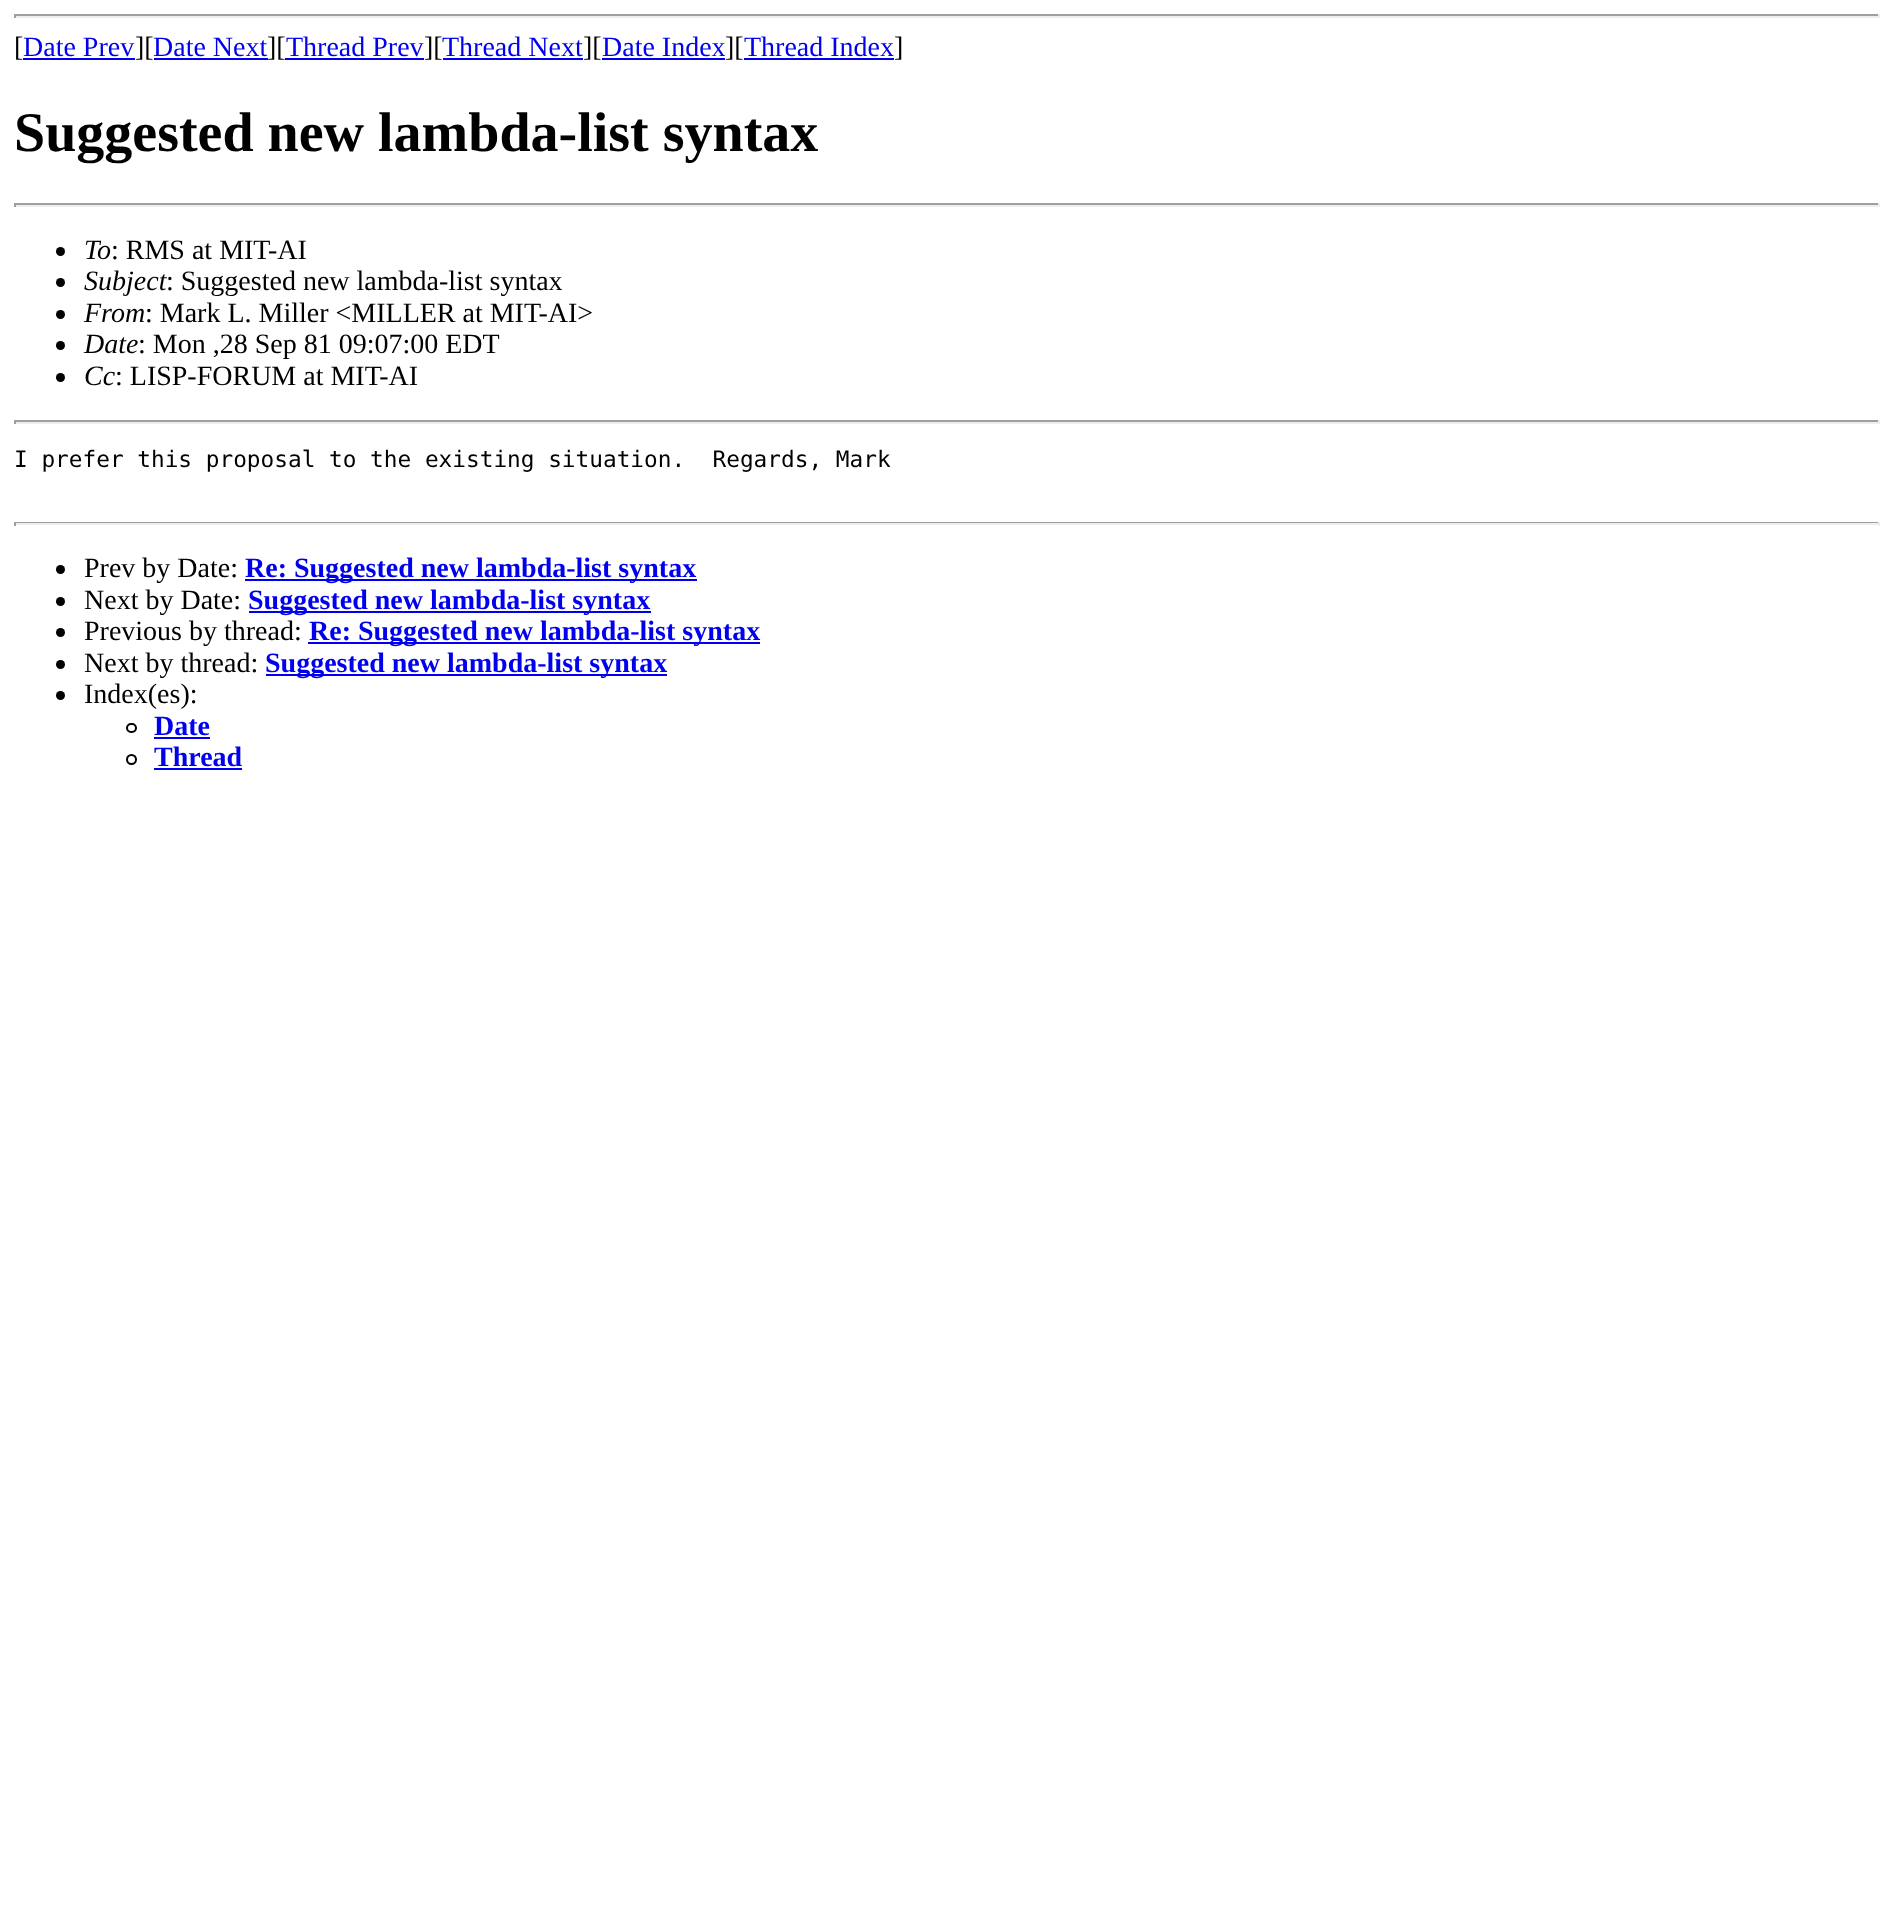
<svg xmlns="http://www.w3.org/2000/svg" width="1892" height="1921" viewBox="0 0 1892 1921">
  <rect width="100%" height="100%" fill="rgb(255,255,255)"/>
  <rect x="14" y="14" width="1866" height="2" fill="rgb(159,159,159)"/>
  <rect x="1878" y="14" width="2" height="4" fill="rgb(238,238,238)"/>
  <rect x="14" y="16" width="1866" height="2" fill="rgb(238,238,238)"/>
  <rect x="14" y="14" width="2" height="4" fill="rgb(159,159,159)"/>
  <text x="14" y="56" font-family="Liberation Serif" font-size="28" fill="rgb(0,0,0)">[</text>
  <text x="23" y="56" font-family="Liberation Serif" font-size="28" fill="rgb(0,0,238)">Date Prev</text>
  <rect x="23" y="58" width="112" height="2" fill="rgb(0,0,238)"/>
  <text x="135" y="56" font-family="Liberation Serif" font-size="28" fill="rgb(0,0,0)">][</text>
  <text x="153" y="56" font-family="Liberation Serif" font-size="28" fill="rgb(0,0,238)">Date Next</text>
  <rect x="154" y="58" width="114" height="2" fill="rgb(0,0,238)"/>
  <text x="267" y="56" font-family="Liberation Serif" font-size="28" fill="rgb(0,0,0)">][</text>
  <text x="286" y="56" font-family="Liberation Serif" font-size="28" fill="rgb(0,0,238)">Thread Prev</text>
  <rect x="285" y="58" width="139" height="2" fill="rgb(0,0,238)"/>
  <text x="424" y="56" font-family="Liberation Serif" font-size="28" fill="rgb(0,0,0)">][</text>
  <text x="442" y="56" font-family="Liberation Serif" font-size="28" fill="rgb(0,0,238)">Thread Next</text>
  <rect x="443" y="58" width="140" height="2" fill="rgb(0,0,238)"/>
  <text x="583" y="56" font-family="Liberation Serif" font-size="28" fill="rgb(0,0,0)">][</text>
  <text x="602" y="56" font-family="Liberation Serif" font-size="28" fill="rgb(0,0,238)">Date Index</text>
  <rect x="602" y="58" width="123" height="2" fill="rgb(0,0,238)"/>
  <text x="725" y="56" font-family="Liberation Serif" font-size="28" fill="rgb(0,0,0)">][</text>
  <text x="744" y="56" font-family="Liberation Serif" font-size="28" fill="rgb(0,0,238)">Thread Index</text>
  <rect x="744" y="58" width="150" height="2" fill="rgb(0,0,238)"/>
  <text x="894" y="56" font-family="Liberation Serif" font-size="28" fill="rgb(0,0,0)">]</text>
  <text x="14" y="151" font-family="Liberation Serif" font-size="56" font-weight="bold" fill="rgb(0,0,0)">Suggested new lambda-list syntax</text>
  <rect x="14" y="203" width="1866" height="2" fill="rgb(159,159,159)"/>
  <rect x="1878" y="203" width="2" height="4" fill="rgb(238,238,238)"/>
  <rect x="14" y="205" width="1866" height="2" fill="rgb(238,238,238)"/>
  <rect x="14" y="203" width="2" height="4" fill="rgb(159,159,159)"/>
  <circle cx="60.5" cy="251.5" r="4.5" fill="rgb(0,0,0)"/>
  <text x="84" y="259" font-family="Liberation Serif" font-size="28" font-style="italic" fill="rgb(0,0,0)">To</text>
  <text x="111" y="259" font-family="Liberation Serif" font-size="28" fill="rgb(0,0,0)">: RMS at MIT-AI</text>
  <circle cx="60.5" cy="282.5" r="4.5" fill="rgb(0,0,0)"/>
  <text x="84" y="290" font-family="Liberation Serif" font-size="28" font-style="italic" fill="rgb(0,0,0)">Subject</text>
  <text x="166" y="290" font-family="Liberation Serif" font-size="28" fill="rgb(0,0,0)">: Suggested new lambda-list syntax</text>
  <circle cx="60.5" cy="314.5" r="4.5" fill="rgb(0,0,0)"/>
  <text x="84" y="322" font-family="Liberation Serif" font-size="28" font-style="italic" fill="rgb(0,0,0)">From</text>
  <text x="145" y="322" font-family="Liberation Serif" font-size="28" fill="rgb(0,0,0)">: Mark L. Miller &lt;MILLER at MIT-AI&gt;</text>
  <circle cx="60.5" cy="345.5" r="4.5" fill="rgb(0,0,0)"/>
  <text x="84" y="353" font-family="Liberation Serif" font-size="28" font-style="italic" fill="rgb(0,0,0)">Date</text>
  <text x="138" y="353" font-family="Liberation Serif" font-size="28" fill="rgb(0,0,0)">: Mon ,28 Sep 81 09:07:00 EDT</text>
  <circle cx="60.5" cy="377.5" r="4.5" fill="rgb(0,0,0)"/>
  <text x="84" y="385" font-family="Liberation Serif" font-size="28" font-style="italic" fill="rgb(0,0,0)">Cc</text>
  <text x="115" y="385" font-family="Liberation Serif" font-size="28" fill="rgb(0,0,0)">: LISP-FORUM at MIT-AI</text>
  <rect x="14" y="420" width="1866" height="2" fill="rgb(159,159,159)"/>
  <rect x="1878" y="420" width="2" height="4" fill="rgb(238,238,238)"/>
  <rect x="14" y="422" width="1866" height="2" fill="rgb(238,238,238)"/>
  <rect x="14" y="420" width="2" height="4" fill="rgb(159,159,159)"/>
  <text x="14" y="467" font-family="DejaVu Sans Mono" font-size="22.75" fill="rgb(0,0,0)" xml:space="preserve">I prefer this proposal to the existing situation.  Regards, Mark</text>
  <rect x="14" y="522" width="1866" height="1" fill="rgb(159,159,159)"/>
  <rect x="1878" y="522" width="2" height="4" fill="rgb(238,238,238)"/>
  <rect x="14" y="523" width="1866" height="2" fill="rgb(238,238,238)"/>
  <rect x="14" y="522" width="2" height="4" fill="rgb(159,159,159)"/>
  <circle cx="60.5" cy="569.5" r="4.5" fill="rgb(0,0,0)"/>
  <text x="84" y="577" font-family="Liberation Serif" font-size="28" fill="rgb(0,0,0)">Prev by Date:</text>
  <rect x="245" y="579" width="452" height="2" fill="rgb(0,0,238)"/>
  <text x="245" y="577" font-family="Liberation Serif" font-size="28" font-weight="bold" fill="rgb(0,0,238)">Re: Suggested new lambda-list syntax</text>
  <circle cx="60.5" cy="601.5" r="4.5" fill="rgb(0,0,0)"/>
  <text x="84" y="609" font-family="Liberation Serif" font-size="28" fill="rgb(0,0,0)">Next by Date:</text>
  <rect x="249" y="611" width="402" height="2" fill="rgb(0,0,238)"/>
  <text x="248" y="609" font-family="Liberation Serif" font-size="28" font-weight="bold" fill="rgb(0,0,238)">Suggested new lambda-list syntax</text>
  <circle cx="60.5" cy="632.5" r="4.5" fill="rgb(0,0,0)"/>
  <text x="84" y="640" font-family="Liberation Serif" font-size="28" fill="rgb(0,0,0)">Previous by thread:</text>
  <rect x="308" y="642" width="452" height="2" fill="rgb(0,0,238)"/>
  <text x="309" y="640" font-family="Liberation Serif" font-size="28" font-weight="bold" fill="rgb(0,0,238)">Re: Suggested new lambda-list syntax</text>
  <circle cx="60.5" cy="664.5" r="4.5" fill="rgb(0,0,0)"/>
  <text x="84" y="672" font-family="Liberation Serif" font-size="28" fill="rgb(0,0,0)">Next by thread:</text>
  <rect x="266" y="674" width="401" height="2" fill="rgb(0,0,238)"/>
  <text x="265" y="672" font-family="Liberation Serif" font-size="28" font-weight="bold" fill="rgb(0,0,238)">Suggested new lambda-list syntax</text>
  <circle cx="60.5" cy="695.5" r="4.5" fill="rgb(0,0,0)"/>
  <text x="84" y="703" font-family="Liberation Serif" font-size="28" fill="rgb(0,0,0)">Index(es):</text>
  <rect x="127" y="724" width="9" height="8" rx="4" fill="none" stroke="rgb(0,0,0)" stroke-width="2"/>
  <text x="154" y="735" font-family="Liberation Serif" font-size="28" font-weight="bold" fill="rgb(0,0,238)">Date</text>
  <rect x="154" y="737" width="56" height="2" fill="rgb(0,0,238)"/>
  <circle cx="131.5" cy="759.5" r="4.5" fill="none" stroke="rgb(0,0,0)" stroke-width="2"/>
  <text x="154" y="766" font-family="Liberation Serif" font-size="28" font-weight="bold" fill="rgb(0,0,238)">Thread</text>
  <rect x="154" y="768" width="88" height="2" fill="rgb(0,0,238)"/>
</svg>
